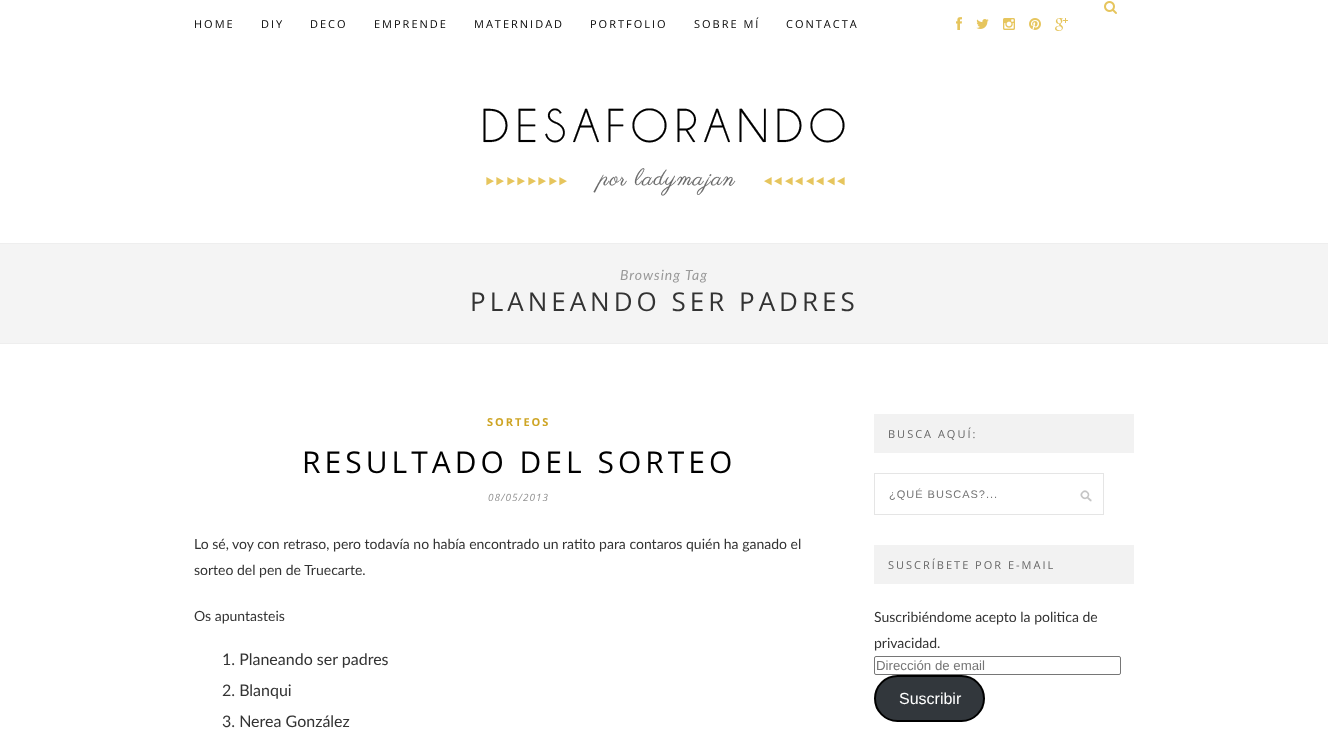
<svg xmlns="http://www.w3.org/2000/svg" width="1328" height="750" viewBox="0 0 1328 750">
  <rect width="100%" height="100%" fill="rgb(255,255,255)"/>
  <image x="1104" y="1" width="13" height="13" href="pic1.png"/>
  <g font-family="Open Sans" font-size="11" letter-spacing="2" fill="rgb(0,0,0)">
    <text x="194" y="28">HOME</text>
    <text x="261" y="28">DIY</text>
    <text x="310" y="28">DECO</text>
    <text x="374" y="28">EMPRENDE</text>
    <text x="474" y="28">MATERNIDAD</text>
    <text x="590" y="28">PORTFOLIO</text>
    <text x="694" y="28">SOBRE MÍ</text>
    <text x="786" y="28">CONTACTA</text>
  </g>
  <image x="956" y="17" width="6" height="13" href="pic2.png"/>
  <image x="976" y="19" width="13" height="10" href="pic3.png"/>
  <image x="1003" y="18" width="12" height="12" href="pic4.png"/>
  <image x="1029" y="18" width="12" height="12" href="pic5.png"/>
  <image x="1055" y="18" width="13" height="13" href="pic6.png"/>
  <rect x="0" y="243" width="1328" height="1" fill="rgb(238,238,238)"/>
  <image x="483" y="108" width="362" height="88" href="pic7.png"/>
  <rect x="0" y="244" width="1328" height="99" fill="rgb(244,244,244)"/>
  <rect x="0" y="343" width="1328" height="1" fill="rgb(238,238,238)"/>
  <text x="620" y="280" font-family="Lato" font-size="14" font-style="italic" letter-spacing="1" fill="rgb(153,153,153)">Browsing Tag</text>
  <text x="470" y="311" font-family="Open Sans" font-size="26" letter-spacing="4" fill="rgb(51,51,51)">PLANEANDO SER PADRES</text>
  <text x="487" y="426" font-family="Open Sans" font-size="11" font-weight="bold" letter-spacing="2" fill="rgb(206,165,37)">SORTEOS</text>
  <text x="302" y="473" font-family="Open Sans" font-size="30" letter-spacing="4" fill="rgb(0,0,0)">RESULTADO DEL SORTEO</text>
  <text x="488" y="501" font-family="Open Sans" font-size="10" font-style="italic" letter-spacing="1" fill="rgb(147,147,147)">08/05/2013</text>
  <g font-family="Lato" font-size="14" fill="rgb(51,51,51)">
    <text>
      <tspan x="194" y="549">Lo sé, voy con retraso, pero todavía no había encontrado un ratito para contaros quién ha ganado el</tspan>
      <tspan x="194" y="575">sorteo del pen de Truecarte.</tspan>
    </text>
    <text x="194" y="621">Os apuntasteis</text>
  </g>
  <g font-family="Lato" font-size="16" fill="rgb(51,51,51)">
    <text>
      <tspan x="222" y="665">1. Planeando ser padres</tspan>
      <tspan x="222" y="696">2. Blanqui</tspan>
      <tspan x="222" y="727">3. Nerea González</tspan>
    </text>
  </g>
  <rect x="874" y="414" width="260" height="39" fill="rgb(242,242,242)"/>
  <text x="888" y="438" font-family="Open Sans" font-size="11" letter-spacing="2" fill="rgb(102,102,102)">BUSCA AQUÍ:</text>
  <image x="1080" y="490" width="12" height="12" href="pic8.png"/>
  <rect x="874.5" y="473.5" width="229" height="41" fill="none" stroke="rgb(229,229,229)"/>
  <text x="889" y="498" font-family="Liberation Sans" font-size="11" letter-spacing="1" fill="rgb(117,117,117)">¿QUÉ BUSCAS?...</text>
  <rect x="874" y="545" width="260" height="39" fill="rgb(242,242,242)"/>
  <text x="888" y="569" font-family="Open Sans" font-size="11" letter-spacing="2" fill="rgb(102,102,102)">SUSCRÍBETE POR E-MAIL</text>
  <g font-family="Lato" font-size="14" fill="rgb(51,51,51)">
    <text>
      <tspan x="874" y="622">Suscribiéndome acepto la politica de</tspan>
      <tspan x="874" y="648">privacidad.</tspan>
    </text>
  </g>
  <rect x="874.5" y="656.5" width="246" height="18" rx="1.5" fill="none" stroke="rgb(118,118,118)"/>
  <text x="876" y="670" font-family="Liberation Sans" font-size="13.25" fill="rgb(117,117,117)">Dirección de email</text>
  <rect x="875" y="676" width="109" height="45" rx="22.5" fill="rgb(50,55,60)" stroke="rgb(0,0,0)" stroke-width="2"/>
  <text x="899" y="704" font-family="Liberation Sans" font-size="16" fill="rgb(255,255,255)">Suscribir</text>
</svg>
